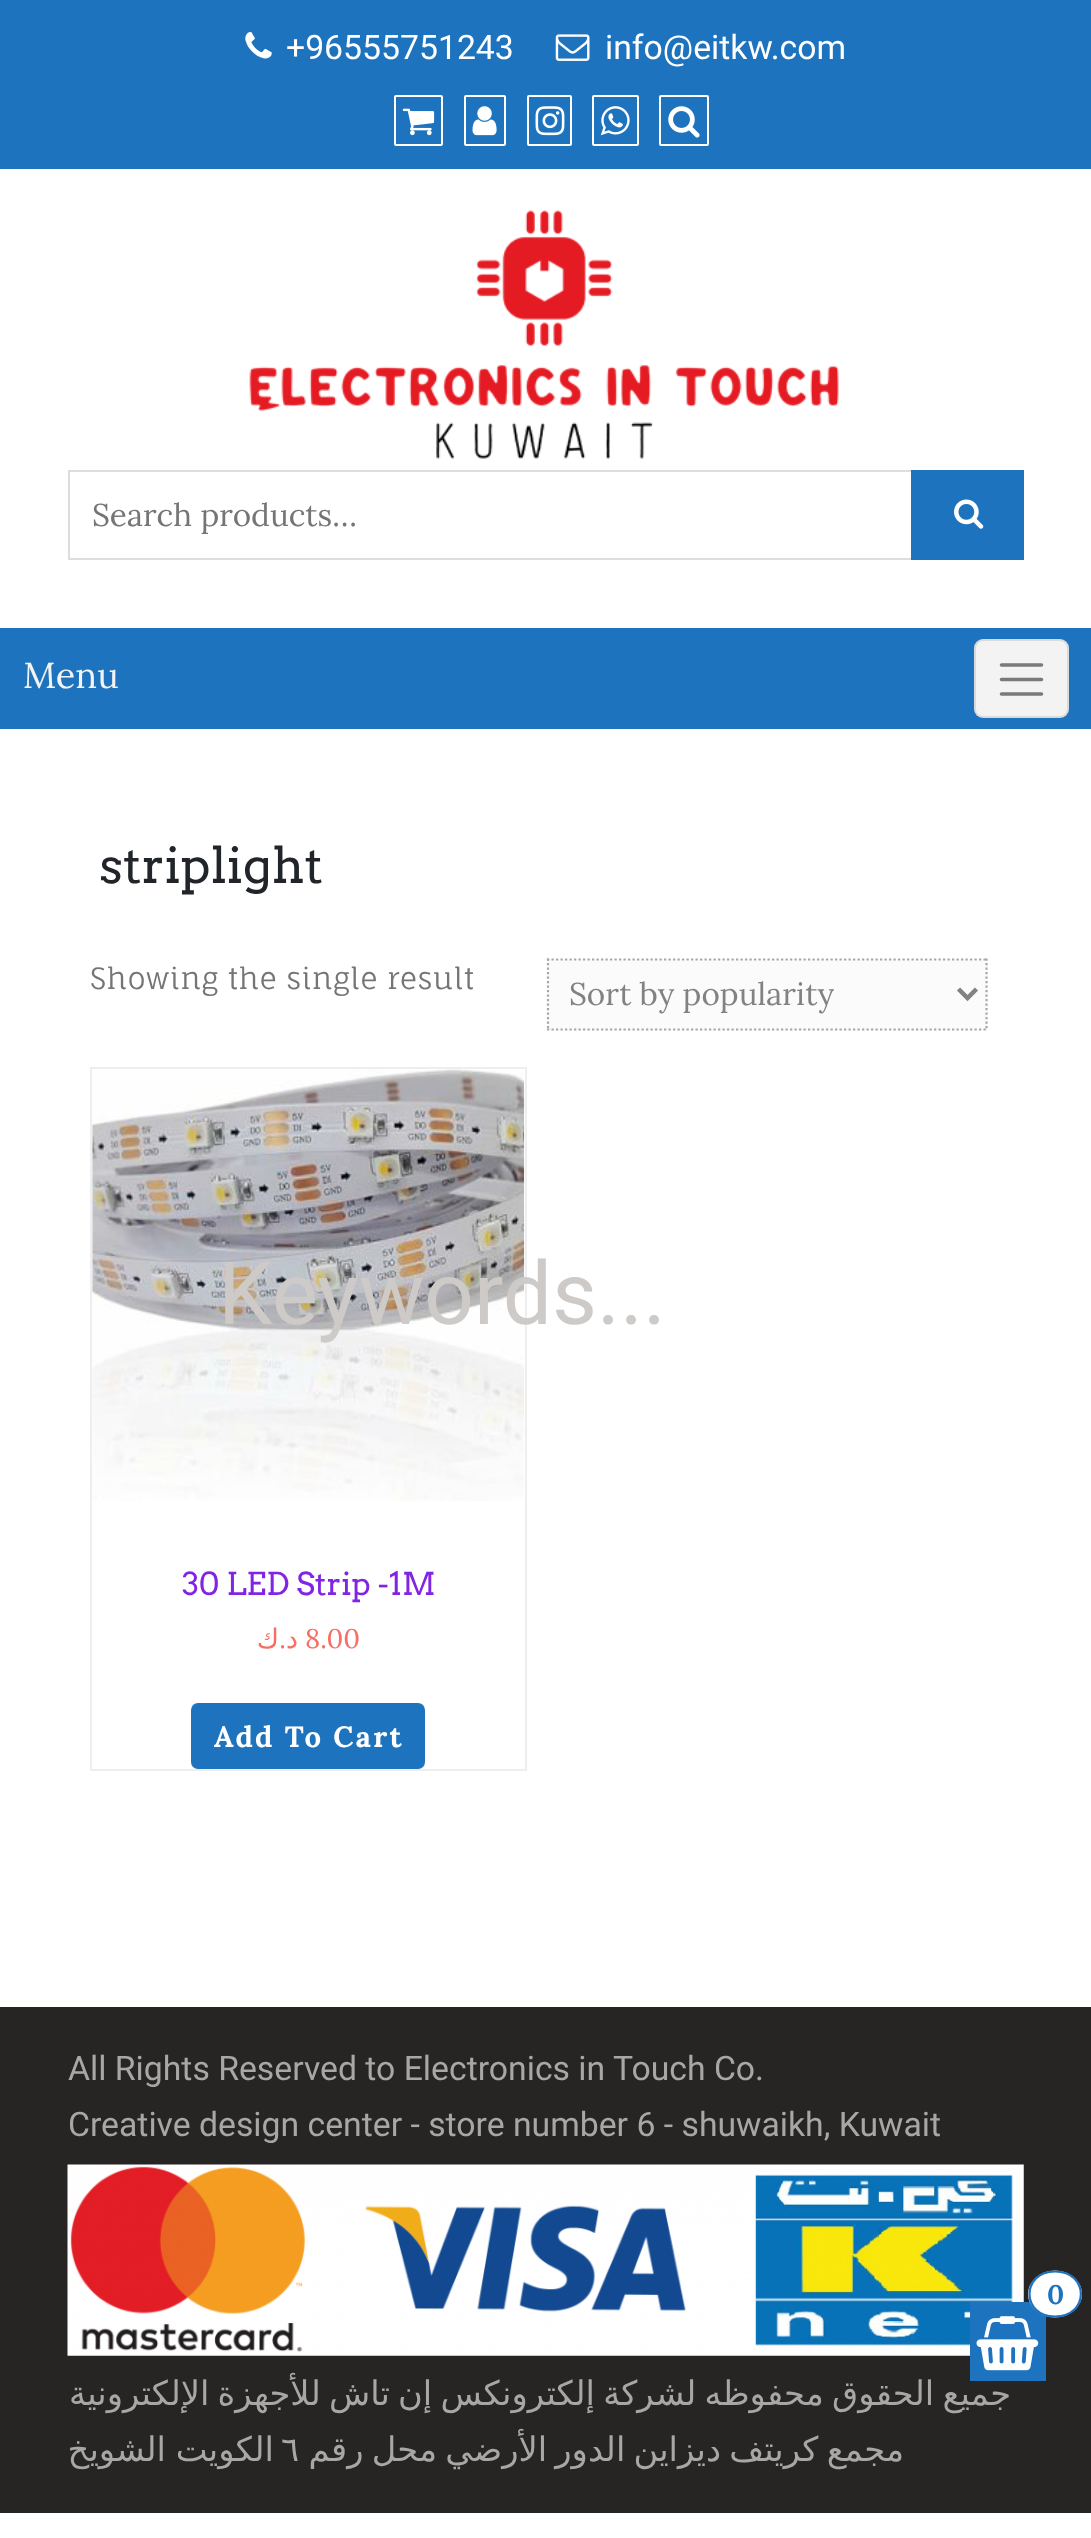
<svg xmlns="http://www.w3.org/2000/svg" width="1091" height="2538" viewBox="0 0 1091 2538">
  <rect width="100%" height="100%" fill="rgb(255,255,255)"/>
  <rect x="0" y="0" width="1091" height="169" fill="rgb(30,115,190)"/>
  <image x="245" y="32" width="27" height="27" href="pic1.png"/>
  <text x="286" y="59" font-family="Roboto" font-size="33.75" fill="rgb(255,255,255)">+96555751243</text>
  <image x="555" y="34" width="35" height="27" href="pic2.png"/>
  <text x="605" y="59" font-family="Roboto" font-size="33.75" fill="rgb(255,255,255)">info@eitkw.com</text>
  <rect x="395" y="96" width="47" height="49" rx="1" fill="none" stroke="rgb(255,255,255)" stroke-width="2"/>
  <image x="402" y="108" width="33" height="28" href="pic3.png"/>
  <rect x="465" y="96" width="40" height="49" rx="1" fill="none" stroke="rgb(255,255,255)" stroke-width="2"/>
  <image x="472" y="106" width="25" height="30" href="pic4.png"/>
  <rect x="528" y="96" width="43" height="49" rx="1" fill="none" stroke="rgb(255,255,255)" stroke-width="2"/>
  <image x="535" y="106" width="30" height="30" href="pic5.png"/>
  <rect x="593" y="96" width="45" height="49" rx="1" fill="none" stroke="rgb(255,255,255)" stroke-width="2"/>
  <image x="600" y="106" width="30" height="30" href="pic6.png"/>
  <rect x="660" y="96" width="48" height="49" rx="1" fill="none" stroke="rgb(255,255,255)" stroke-width="2"/>
  <image x="668" y="106" width="32" height="32" href="pic7.png"/>
  <rect x="91" y="1068" width="435" height="702" fill="none" stroke="rgb(238,238,238)" stroke-width="2"/>
  <image x="92" y="1069" width="433" height="432" href="pic10.png"/>
  <text x="218" y="1324" font-family="Roboto" font-size="87.25" fill="rgb(205,202,200)">Keywords...</text>
  <image x="249" y="210" width="590" height="249" href="pic8.png"/>
  <rect x="69" y="471" width="954" height="88" fill="none" stroke="rgb(221,221,221)" stroke-width="2"/>
  <text x="92" y="526" font-family="Lora" font-size="31.5" fill="rgb(117,117,117)">Search products…</text>
  <rect x="911" y="470" width="113" height="90" fill="rgb(30,115,190)"/>
  <image x="954" y="499" width="30" height="30" href="pic9.png"/>
  <rect x="0" y="628" width="1091" height="101" fill="rgb(30,115,190)"/>
  <text x="23" y="688" font-family="Lora" font-size="36" fill="rgb(243,243,243)">Menu</text>
  <rect x="974" y="639" width="95" height="79" rx="9" fill="rgb(243,243,243)"/>
  <rect x="975" y="640" width="93" height="77" rx="8" fill="none" stroke="rgba(0,0,0,0.1)" stroke-width="2"/>
  <path d="M1001.5 665H1041.5M1001.5 679.5H1041.5M1001.5 694H1041.5" fill="none" stroke="rgb(122,122,122)" stroke-width="3.6" stroke-linecap="round"/>
  <text x="99" y="883" font-family="Arvo" font-size="49.5" fill="rgb(33,37,41)">striplight</text>
  <text x="90" y="989" font-family="Fauna One" font-size="29.25" letter-spacing="0.45" fill="rgb(117,117,117)">Showing the single result</text>
  <rect x="547" y="959" width="441" height="72" fill="rgb(251,251,251)"/>
  <path d="M547 959.5H988" fill="none" stroke="rgb(167,167,167)" stroke-width="2.2" stroke-dasharray="2.25 2.25"/>
  <path d="M986.5 958.5V1030.5" fill="none" stroke="rgb(167,167,167)" stroke-width="2.2" stroke-dasharray="2.25 2.25"/>
  <path d="M547 1029.5H988" fill="none" stroke="rgb(167,167,167)" stroke-width="2.2" stroke-dasharray="2.25 2.25"/>
  <path d="M548 958.5V1030.5" fill="none" stroke="rgb(167,167,167)" stroke-width="2.2" stroke-dasharray="2.25 2.25"/>
  <path d="M958.5 989L967.5 998L976.5 989" fill="none" stroke="rgb(130,130,130)" stroke-width="4.5"/>
  <text x="569" y="1005" font-family="Lora" font-size="31.5" fill="rgb(130,130,130)">Sort by popularity</text>
  <text x="182" y="1595" font-family="Arvo" font-size="31.5" fill="rgb(130,36,227)">30 LED Strip -1M</text>
  <text x="279" y="1648" font-family="DejaVu Sans" font-size="27" direction="rtl" fill="rgb(246,111,102)">ك</text>
  <text x="286" y="1648" font-family="Lora" font-size="27" direction="rtl" fill="rgb(246,111,102)">.</text>
  <text x="298" y="1648" font-family="DejaVu Sans" font-size="27" direction="rtl" fill="rgb(246,111,102)">د</text>
  <text x="305" y="1648" font-family="Lora" font-size="27" fill="rgb(246,111,102)">8.00</text>
  <rect x="191" y="1703" width="234" height="66" rx="7" fill="rgb(30,115,190)"/>
  <text x="214" y="1747" font-family="Lora" font-size="29.25" font-weight="bold" letter-spacing="2.25" fill="rgb(255,255,255)">Add To Cart</text>
  <rect x="0" y="2007" width="1091" height="506" fill="rgb(39,36,36)"/>
  <g font-family="Roboto" font-size="33.75" fill="rgb(167,167,167)">
    <text>
      <tspan x="68" y="2080">All Rights Reserved to Electronics in Touch Co.</tspan>
      <tspan x="68" y="2136">Creative design center - store number 6 - shuwaikh, Kuwait</tspan>
    </text>
  </g>
  <image x="67" y="2164" width="957" height="192" href="pic11.png"/>
  <g font-family="DejaVu Sans" font-size="33.75" direction="rtl" fill="rgb(167,167,167)">
    <text x="1011" y="2405" word-spacing="-2.5">جميع الحقوق محفوظه لشركة إلكترونكس إن تاش للأجهزة الإلكترونية</text>
    <text x="274" y="2461" word-spacing="-1">الكويت الشويخ</text>
  </g>
  <text x="281" y="2461" font-family="DejaVu Sans" font-size="33.75" fill="rgb(167,167,167)">٦</text>
  <text x="904" y="2461" word-spacing="-2.5" font-family="DejaVu Sans" font-size="33.75" direction="rtl" fill="rgb(167,167,167)">مجمع كريتف ديزاين الدور الأرضي محل رقم</text>
  <rect x="970" y="2302" width="76" height="79" fill="rgb(30,115,190)"/>
  <image x="976" y="2316" width="63" height="55" href="pic12.png"/>
  <ellipse cx="1055" cy="2294" rx="27" ry="23.5" fill="rgb(255,255,255)"/>
  <path d="M1055 2271.5C1089.5 2271.5 1089.5 2316.5 1055 2316.5C1021 2316.5 1021 2271.5 1055 2271.5Z" fill="none" stroke="rgb(30,115,190)" stroke-width="2.2"/>
  <text x="1047" y="2304" font-family="Lora" font-size="27" font-weight="bold" fill="rgb(30,115,190)">0</text>
</svg>
